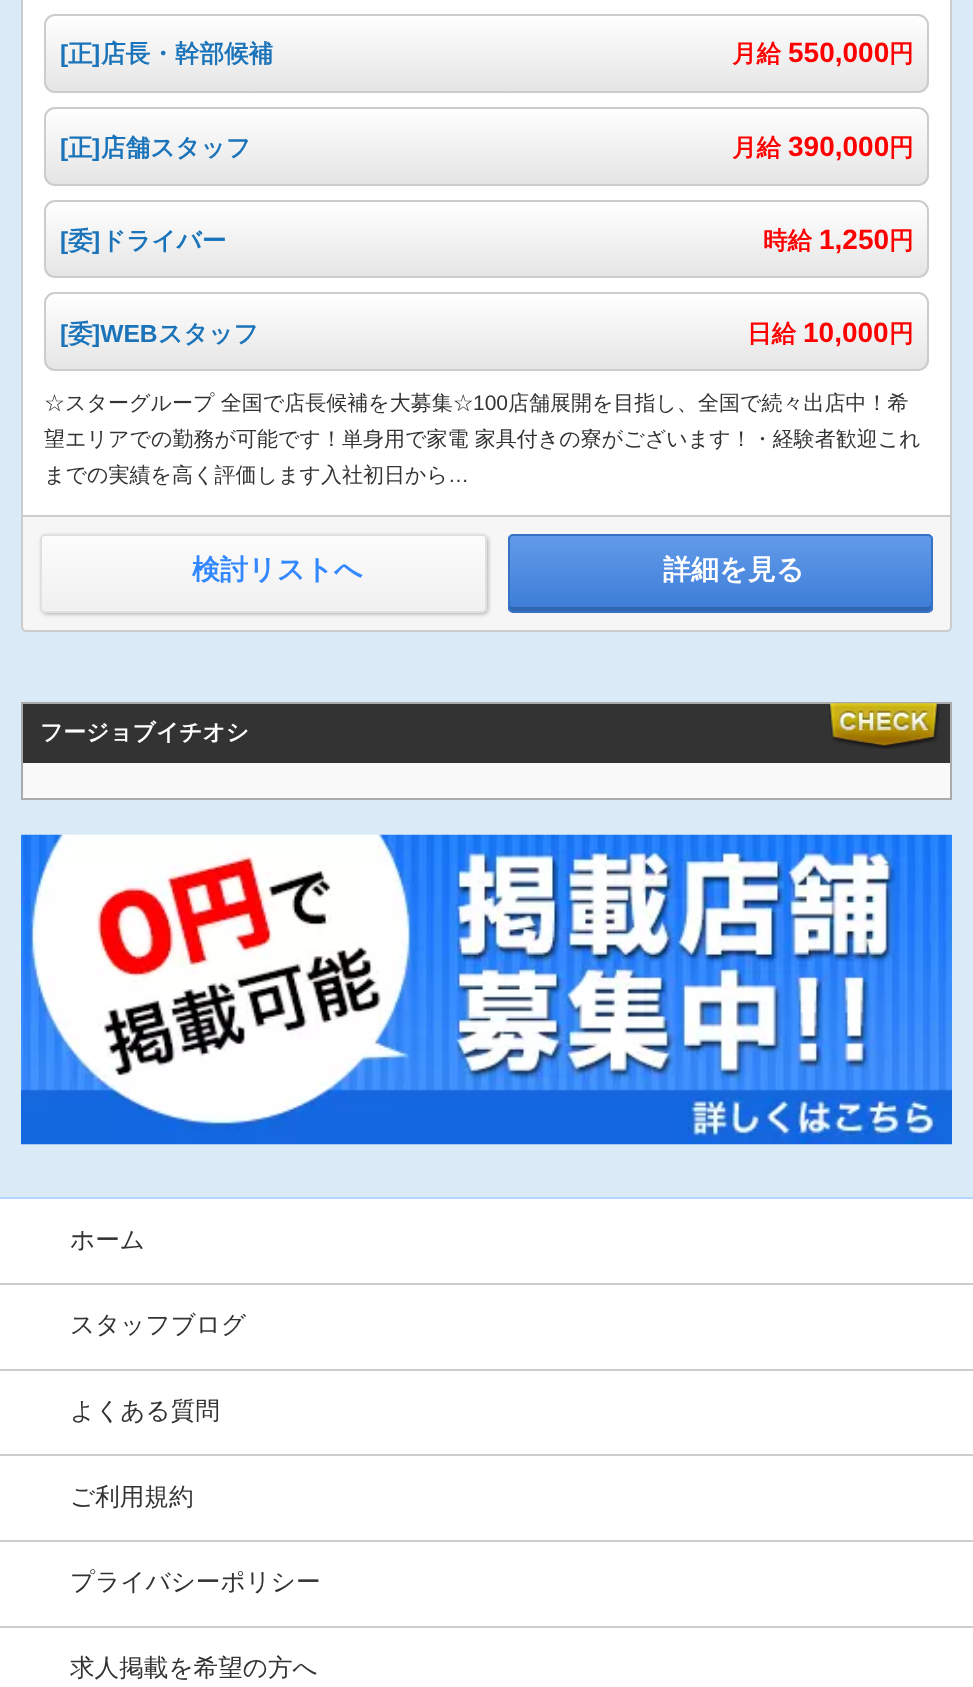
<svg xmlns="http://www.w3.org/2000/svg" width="973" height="1687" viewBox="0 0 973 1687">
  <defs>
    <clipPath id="clip1"><rect x="44" y="14" width="885" height="79" rx="11"/></clipPath>
    <linearGradient id="g1" gradientUnits="userSpaceOnUse" x1="487" y1="16" x2="487" y2="91"><stop offset="0" stop-color="rgb(255,255,255)"/><stop offset="1" stop-color="rgb(229,229,229)"/></linearGradient>
    <clipPath id="clip2"><rect x="44" y="107" width="885" height="79" rx="11"/></clipPath>
    <linearGradient id="g2" gradientUnits="userSpaceOnUse" x1="487" y1="108" x2="487" y2="184"><stop offset="0" stop-color="rgb(255,255,255)"/><stop offset="1" stop-color="rgb(229,229,229)"/></linearGradient>
    <clipPath id="clip3"><rect x="44" y="200" width="885" height="78" rx="11"/></clipPath>
    <linearGradient id="g3" gradientUnits="userSpaceOnUse" x1="487" y1="201" x2="487" y2="277"><stop offset="0" stop-color="rgb(255,255,255)"/><stop offset="1" stop-color="rgb(229,229,229)"/></linearGradient>
    <clipPath id="clip4"><rect x="44" y="292" width="885" height="79" rx="11"/></clipPath>
    <linearGradient id="g4" gradientUnits="userSpaceOnUse" x1="487" y1="294" x2="487" y2="369"><stop offset="0" stop-color="rgb(255,255,255)"/><stop offset="1" stop-color="rgb(229,229,229)"/></linearGradient>
    <clipPath id="clip5"><rect x="40" y="534" width="447" height="79" rx="5"/></clipPath>
    <linearGradient id="g5" gradientUnits="userSpaceOnUse" x1="42" y1="536" x2="42" y2="611"><stop offset="0" stop-color="rgb(252,252,252)"/><stop offset="1" stop-color="rgb(240,240,240)"/></linearGradient>
    <clipPath id="clip6"><rect x="508" y="534" width="425" height="79" rx="5"/></clipPath>
    <linearGradient id="g6" gradientUnits="userSpaceOnUse" x1="509" y1="536" x2="509" y2="611"><stop offset="0" stop-color="rgb(98,154,233)"/><stop offset="1" stop-color="rgb(60,125,214)"/></linearGradient>
  </defs>
  <rect width="100%" height="100%" fill="rgb(218,234,247)"/>
  <rect x="23" y="0" width="927" height="515" fill="rgb(255,255,255)"/>
  <rect x="950" y="0" width="2" height="515" fill="rgb(204,204,204)"/>
  <rect x="21" y="0" width="2" height="515" fill="rgb(204,204,204)"/>
  <g clip-path="url(#clip1)">
    <rect x="44" y="16" width="885" height="75" fill="url(#g1)"/>
  </g>
  <rect x="45" y="15" width="883" height="77" rx="10" fill="none" stroke="rgb(204,204,204)" stroke-width="2"/>
  <text x="60" y="62" font-family="Liberation Sans" font-size="24.6" font-weight="bold" fill="rgb(27,116,185)">[</text>
  <text x="68" y="62" font-family="WenQuanYi Zen Hei" font-size="24.6" font-weight="bold" fill="rgb(27,116,185)">正</text>
  <text x="92" y="62" font-family="Liberation Sans" font-size="24.6" font-weight="bold" fill="rgb(27,116,185)">]</text>
  <text x="101" y="62" font-family="WenQuanYi Zen Hei" font-size="24.6" font-weight="bold" fill="rgb(27,116,185)">店長・幹部候補</text>
  <text x="732" y="62" font-family="WenQuanYi Zen Hei" font-size="24.6" font-weight="bold" fill="rgb(255,0,0)">月給</text>
  <text x="788" y="62" font-family="Liberation Sans" font-size="28" font-weight="bold" fill="rgb(255,0,0)">550,000</text>
  <text x="889" y="62" font-family="WenQuanYi Zen Hei" font-size="24.6" font-weight="bold" fill="rgb(255,0,0)">円</text>
  <g clip-path="url(#clip2)">
    <rect x="44" y="109" width="885" height="75" fill="url(#g2)"/>
  </g>
  <rect x="45" y="108" width="883" height="77" rx="10" fill="none" stroke="rgb(204,204,204)" stroke-width="2"/>
  <text x="60" y="156" font-family="Liberation Sans" font-size="24.6" font-weight="bold" fill="rgb(27,116,185)">[</text>
  <text x="68" y="156" font-family="WenQuanYi Zen Hei" font-size="24.6" font-weight="bold" fill="rgb(27,116,185)">正</text>
  <text x="92" y="156" font-family="Liberation Sans" font-size="24.6" font-weight="bold" fill="rgb(27,116,185)">]</text>
  <text x="101" y="156" font-family="WenQuanYi Zen Hei" font-size="24.6" font-weight="bold" fill="rgb(27,116,185)">店舗スタッフ</text>
  <text x="732" y="156" font-family="WenQuanYi Zen Hei" font-size="24.6" font-weight="bold" fill="rgb(255,0,0)">月給</text>
  <text x="788" y="156" font-family="Liberation Sans" font-size="28" font-weight="bold" fill="rgb(255,0,0)">390,000</text>
  <text x="889" y="156" font-family="WenQuanYi Zen Hei" font-size="24.6" font-weight="bold" fill="rgb(255,0,0)">円</text>
  <g clip-path="url(#clip3)">
    <rect x="44" y="201" width="885" height="76" fill="url(#g3)"/>
  </g>
  <rect x="45" y="201" width="883" height="76" rx="10" fill="none" stroke="rgb(204,204,204)" stroke-width="2"/>
  <text x="60" y="249" font-family="Liberation Sans" font-size="24.6" font-weight="bold" fill="rgb(27,116,185)">[</text>
  <text x="68" y="249" font-family="WenQuanYi Zen Hei" font-size="24.6" font-weight="bold" fill="rgb(27,116,185)">委</text>
  <text x="92" y="249" font-family="Liberation Sans" font-size="24.6" font-weight="bold" fill="rgb(27,116,185)">]</text>
  <text x="101" y="249" font-family="WenQuanYi Zen Hei" font-size="24.6" font-weight="bold" fill="rgb(27,116,185)">ドライバー</text>
  <text x="763" y="249" font-family="WenQuanYi Zen Hei" font-size="24.6" font-weight="bold" fill="rgb(255,0,0)">時給</text>
  <text x="819" y="249" font-family="Liberation Sans" font-size="28" font-weight="bold" fill="rgb(255,0,0)">1,250</text>
  <text x="889" y="249" font-family="WenQuanYi Zen Hei" font-size="24.6" font-weight="bold" fill="rgb(255,0,0)">円</text>
  <g clip-path="url(#clip4)">
    <rect x="44" y="294" width="885" height="75" fill="url(#g4)"/>
  </g>
  <rect x="45" y="293" width="883" height="77" rx="10" fill="none" stroke="rgb(204,204,204)" stroke-width="2"/>
  <text x="60" y="342" font-family="Liberation Sans" font-size="24.6" font-weight="bold" fill="rgb(27,116,185)">[</text>
  <text x="68" y="342" font-family="WenQuanYi Zen Hei" font-size="24.6" font-weight="bold" fill="rgb(27,116,185)">委</text>
  <text x="92" y="342" font-family="Liberation Sans" font-size="24.6" font-weight="bold" fill="rgb(27,116,185)">]WEB</text>
  <text x="158" y="342" font-family="WenQuanYi Zen Hei" font-size="24.6" font-weight="bold" fill="rgb(27,116,185)">スタッフ</text>
  <text x="747" y="342" font-family="WenQuanYi Zen Hei" font-size="24.6" font-weight="bold" fill="rgb(255,0,0)">日給</text>
  <text x="803" y="342" font-family="Liberation Sans" font-size="28" font-weight="bold" fill="rgb(255,0,0)">10,000</text>
  <text x="889" y="342" font-family="WenQuanYi Zen Hei" font-size="24.6" font-weight="bold" fill="rgb(255,0,0)">円</text>
  <text x="44" y="410" font-family="WenQuanYi Zen Hei" font-size="21" font-weight="500" fill="rgb(51,51,51)">☆スターグループ 全国で店長候補を大募集☆</text>
  <text x="473" y="410" font-family="Liberation Sans" font-size="21" fill="rgb(51,51,51)">100</text>
  <g font-family="WenQuanYi Zen Hei" font-size="21" font-weight="500" fill="rgb(51,51,51)">
    <text x="508" y="410">店舗展開を目指し、全国で続々出店中！希</text>
    <text>
      <tspan x="44" y="446">望エリアでの勤務が可能です！単身用で家電 家具付きの寮がございます！・経験者歓迎これ</tspan>
      <tspan x="44" y="482">までの実績を高く評価します入社初日から</tspan>
    </text>
  </g>
  <text x="448" y="482" font-family="Liberation Sans" font-size="21" fill="rgb(51,51,51)">…</text>
  <path d="M22 516H951V627C951 629 949 631 947 631H26C24 631 22 629 22 627Z" fill="rgb(246,246,246)" stroke="rgb(204,204,204)" stroke-width="2"/>
  <rect x="42" y="536" width="446" height="78" rx="5" fill="rgba(0,0,0,0.3)" filter="blur(2px)"/>
  <g clip-path="url(#clip5)">
    <rect x="40" y="536" width="447" height="75" fill="url(#g5)"/>
  </g>
  <path d="M42 606C42 609 43 611 46 611H481L483 610L484 609L485 606C485 607 483 609 481 609H46C44 609 42 607 42 606Z" fill="rgb(243,243,243)"/>
  <rect x="41" y="535" width="445" height="77" rx="4" fill="none" stroke="rgb(224,224,224)" stroke-width="2"/>
  <text x="192" y="579" font-family="WenQuanYi Zen Hei" font-size="28" font-weight="bold" fill="rgb(51,136,255)">検討リストへ</text>
  <g clip-path="url(#clip6)">
    <rect x="508" y="536" width="425" height="75" fill="url(#g6)"/>
  </g>
  <path d="M509 604V607C509 609 511 611 513 611H927C929 611 931 609 931 607V604C931 606 929 607 928 607H513C511 607 509 606 509 604Z" fill="rgb(49,103,177)"/>
  <rect x="509" y="535" width="423" height="77" rx="4" fill="none" stroke="rgb(55,115,197)" stroke-width="2"/>
  <text x="663" y="579" font-family="WenQuanYi Zen Hei" font-size="28" font-weight="bold" fill="rgb(255,255,255)">詳細を見る</text>
  <rect x="23" y="763" width="927" height="35" fill="rgb(249,249,249)"/>
  <rect x="22" y="703" width="929" height="96" fill="none" stroke="rgb(170,170,170)" stroke-width="2"/>
  <rect x="23" y="704" width="927" height="59" fill="rgb(51,51,51)"/>
  <text x="40" y="740" font-family="WenQuanYi Zen Hei" font-size="22.75" font-weight="bold" fill="rgb(255,255,255)">フージョブイチオシ</text>
  <image x="829" y="703" width="111" height="46" href="pic1.png"/>
  <image x="21" y="834" width="931" height="311" href="pic2.png"/>
  <rect x="0" y="1199" width="973" height="488" fill="rgb(255,255,255)"/>
  <rect x="0" y="1197" width="973" height="2" fill="rgb(181,212,255)"/>
  <rect x="0" y="1283" width="973" height="2" fill="rgb(204,204,204)"/>
  <text x="70" y="1248" font-family="WenQuanYi Zen Hei" font-size="24.6" font-weight="500" fill="rgb(51,51,51)">ホーム</text>
  <rect x="0" y="1369" width="973" height="2" fill="rgb(204,204,204)"/>
  <text x="70" y="1333" font-family="WenQuanYi Zen Hei" font-size="24.6" font-weight="500" fill="rgb(51,51,51)">スタッフブログ</text>
  <rect x="0" y="1454" width="973" height="2" fill="rgb(204,204,204)"/>
  <text x="70" y="1419" font-family="WenQuanYi Zen Hei" font-size="24.6" font-weight="500" fill="rgb(51,51,51)">よくある質問</text>
  <rect x="0" y="1540" width="973" height="2" fill="rgb(204,204,204)"/>
  <text x="70" y="1505" font-family="WenQuanYi Zen Hei" font-size="24.6" font-weight="500" fill="rgb(51,51,51)">ご利用規約</text>
  <rect x="0" y="1626" width="973" height="2" fill="rgb(204,204,204)"/>
  <g font-family="WenQuanYi Zen Hei" font-size="24.6" font-weight="500" fill="rgb(51,51,51)">
    <text x="70" y="1590">プライバシーポリシー</text>
    <text x="70" y="1676">求人掲載を希望の方へ</text>
  </g>
</svg>
